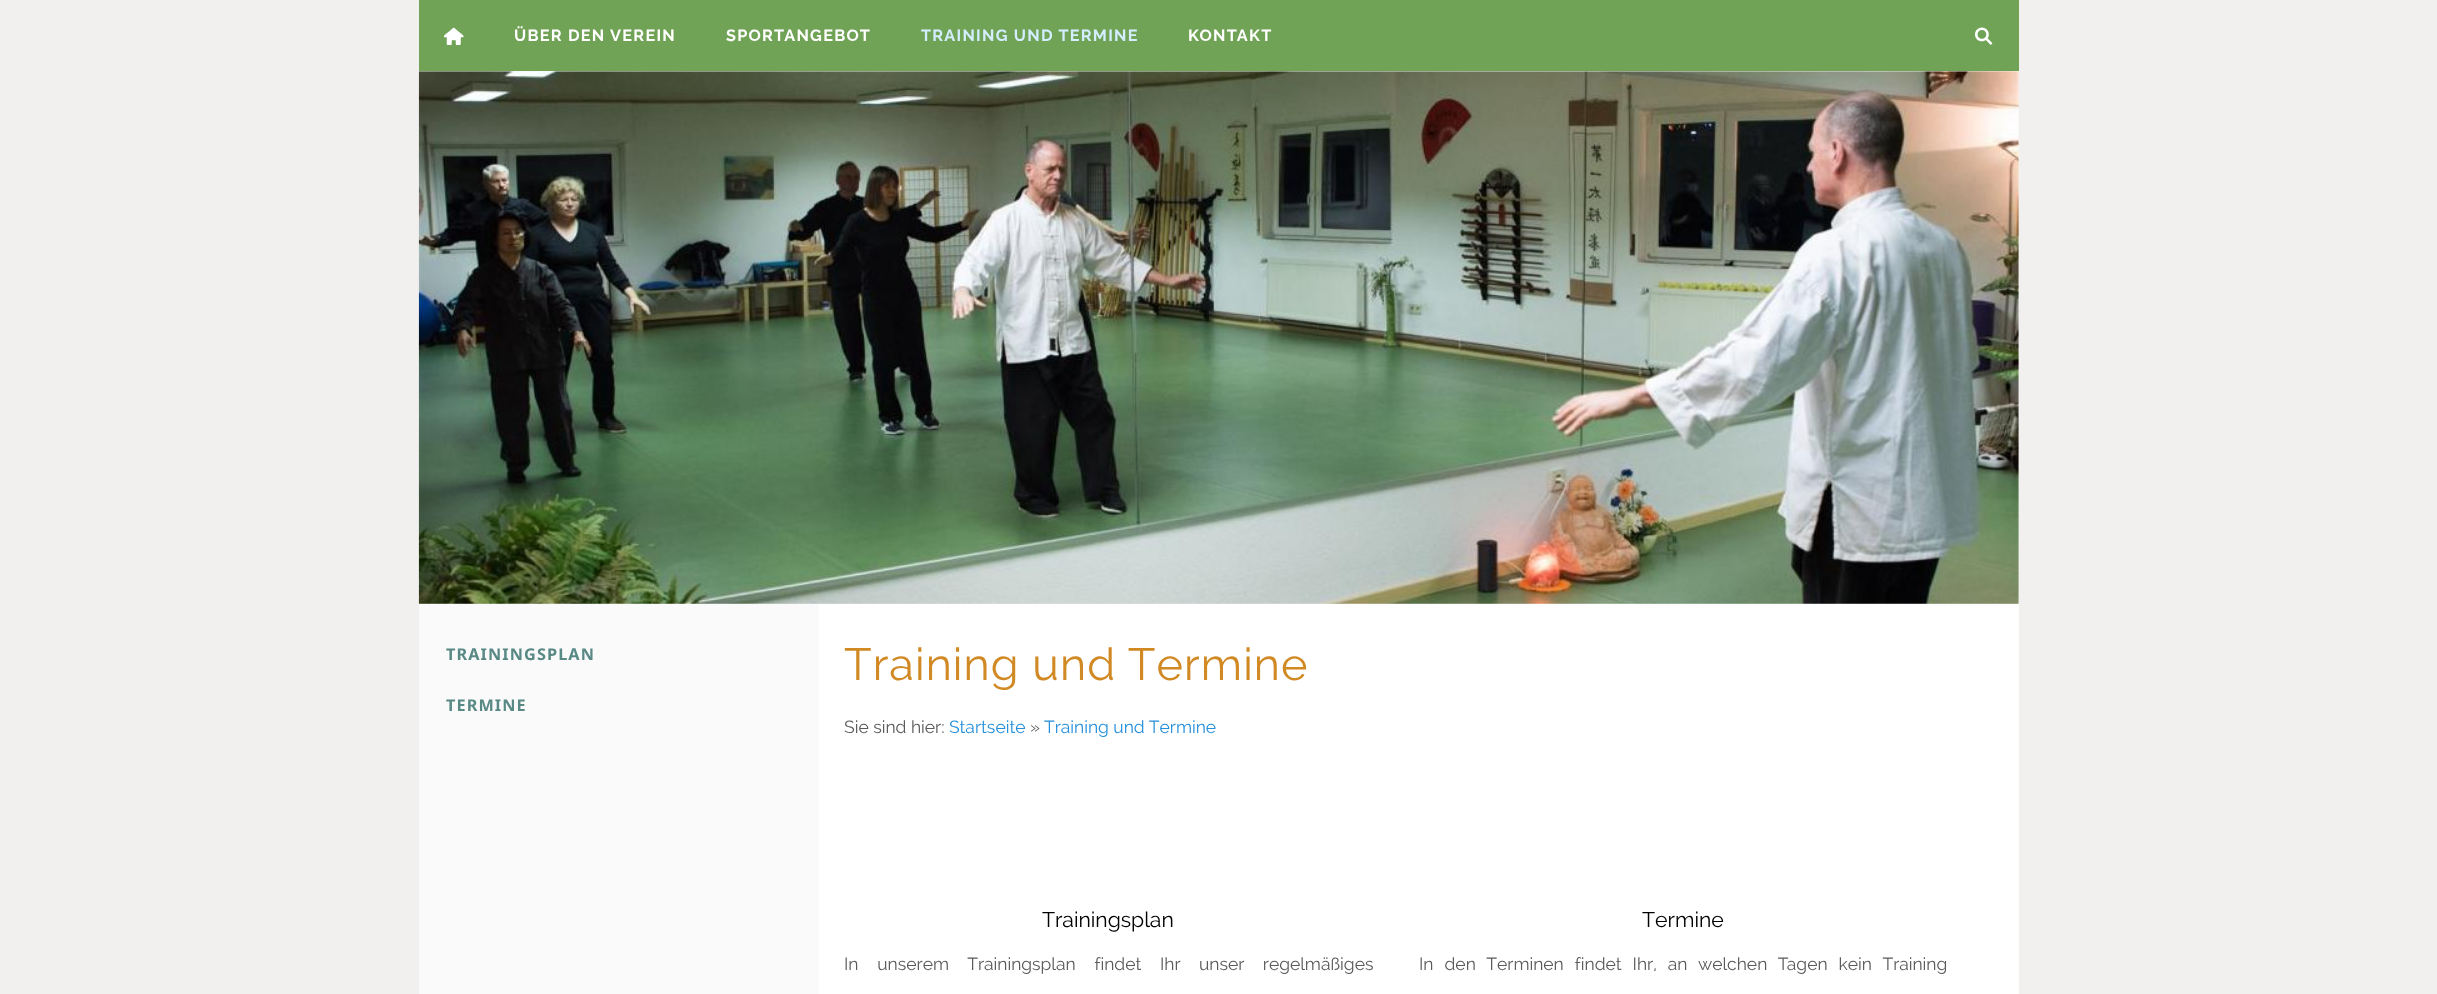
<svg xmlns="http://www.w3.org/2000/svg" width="2437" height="994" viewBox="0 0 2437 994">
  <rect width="100%" height="100%" fill="rgb(241,240,239)"/>
  <rect x="419" y="0" width="1600" height="71" fill="rgb(112,163,86)"/>
  <image x="444" y="27" width="20" height="18" href="pic1.png"/>
  <g font-family="Raleway" font-size="16.25" font-weight="bold" letter-spacing="1.25" fill="rgb(255,255,255)">
    <text x="514" y="41">ÜBER DEN VEREIN</text>
    <text x="726" y="41">SPORTANGEBOT</text>
  </g>
  <text x="921" y="41" font-family="Raleway" font-size="16.25" font-weight="bold" letter-spacing="1.25" fill="rgb(212,237,255)">TRAINING UND TERMINE</text>
  <text x="1188" y="41" font-family="Raleway" font-size="16.25" font-weight="bold" letter-spacing="1.25" fill="rgb(255,255,255)">KONTAKT</text>
  <image x="1975" y="27" width="18" height="18" href="pic2.png"/>
  <image x="418" y="71" width="1601" height="533" href="pic3.png"/>
  <rect x="819" y="604" width="1200" height="390" fill="rgb(255,255,255)"/>
  <rect x="419" y="604" width="400" height="390" fill="rgb(250,250,250)"/>
  <g font-family="Noto Sans" font-size="16.25" font-weight="bold" letter-spacing="1.1" fill="rgb(89,137,133)">
    <text x="446" y="660">TRAININGSPLAN</text>
    <text x="446" y="711">TERMINE</text>
  </g>
  <text x="844" y="680" font-family="Raleway" font-size="45" letter-spacing="1.1" fill="rgb(209,137,36)">Training und Termine</text>
  <text x="844" y="733" font-family="Raleway" font-size="17.5" fill="rgb(90,90,90)">Sie sind hier:</text>
  <text x="949" y="733" font-family="Raleway" font-size="17.5" fill="rgb(37,143,219)">Startseite</text>
  <text x="1030" y="733" font-family="Raleway" font-size="17.5" fill="rgb(90,90,90)">»</text>
  <text x="1044" y="733" font-family="Raleway" font-size="17.5" fill="rgb(37,143,219)">Training und Termine</text>
  <text x="1042" y="927" font-family="Raleway" font-size="21.25" fill="rgb(0,0,0)">Trainingsplan</text>
  <text x="844" y="970" word-spacing="14.25" font-family="Raleway" font-size="17.5" fill="rgb(90,90,90)">In unserem Trainingsplan findet Ihr unser regelmäßiges</text>
  <text x="1642" y="927" font-family="Raleway" font-size="21.25" fill="rgb(0,0,0)">Termine</text>
  <text x="1419" y="970" word-spacing="6.5" font-family="Raleway" font-size="17.5" fill="rgb(90,90,90)">In den Terminen findet Ihr, an welchen Tagen kein Training</text>
</svg>
